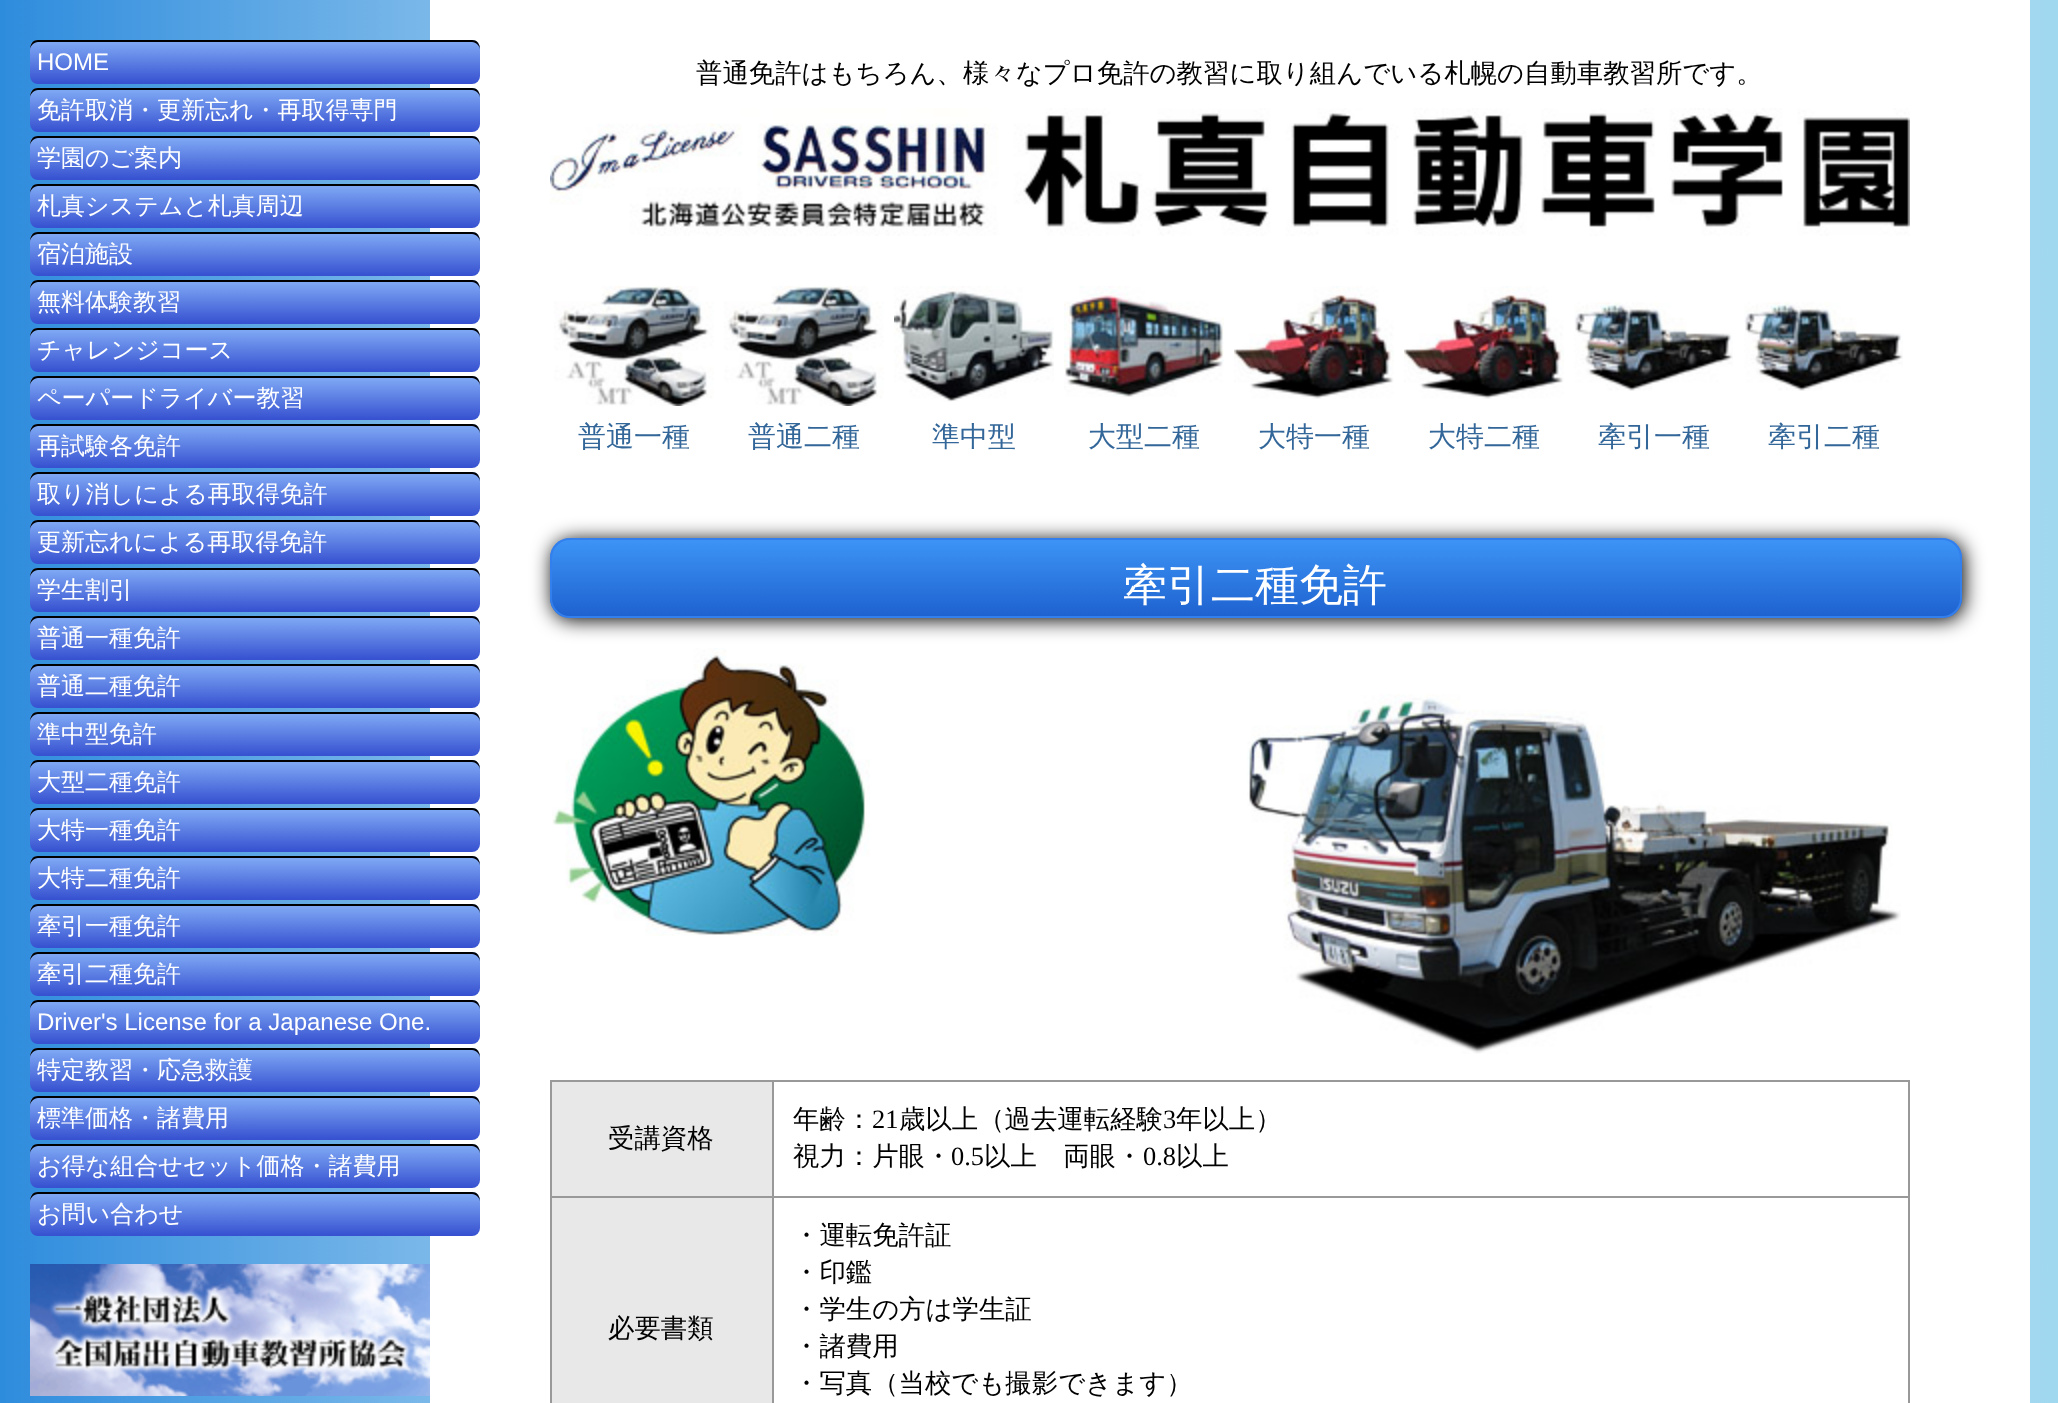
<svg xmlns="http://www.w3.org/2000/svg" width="2058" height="1403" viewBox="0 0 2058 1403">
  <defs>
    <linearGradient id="g1" gradientUnits="userSpaceOnUse" x1="0" y1="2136" x2="2058" y2="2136"><stop offset="0" stop-color="rgb(46,140,221)"/><stop offset="0.48" stop-color="rgb(221,241,249)"/><stop offset="1" stop-color="rgb(160,216,239)"/></linearGradient>
    <linearGradient id="g2" gradientUnits="userSpaceOnUse" x1="255" y1="40" x2="255" y2="84"><stop offset="0" stop-color="rgb(130,173,246)"/><stop offset="1" stop-color="rgb(54,80,208)"/></linearGradient>
    <linearGradient id="g3" gradientUnits="userSpaceOnUse" x1="255" y1="88" x2="255" y2="132"><stop offset="0" stop-color="rgb(130,173,246)"/><stop offset="1" stop-color="rgb(54,80,208)"/></linearGradient>
    <linearGradient id="g4" gradientUnits="userSpaceOnUse" x1="255" y1="136" x2="255" y2="180"><stop offset="0" stop-color="rgb(130,173,246)"/><stop offset="1" stop-color="rgb(54,80,208)"/></linearGradient>
    <linearGradient id="g5" gradientUnits="userSpaceOnUse" x1="255" y1="184" x2="255" y2="228"><stop offset="0" stop-color="rgb(130,173,246)"/><stop offset="1" stop-color="rgb(54,80,208)"/></linearGradient>
    <linearGradient id="g6" gradientUnits="userSpaceOnUse" x1="255" y1="232" x2="255" y2="276"><stop offset="0" stop-color="rgb(130,173,246)"/><stop offset="1" stop-color="rgb(54,80,208)"/></linearGradient>
    <linearGradient id="g7" gradientUnits="userSpaceOnUse" x1="255" y1="280" x2="255" y2="324"><stop offset="0" stop-color="rgb(130,173,246)"/><stop offset="1" stop-color="rgb(54,80,208)"/></linearGradient>
    <linearGradient id="g8" gradientUnits="userSpaceOnUse" x1="255" y1="328" x2="255" y2="372"><stop offset="0" stop-color="rgb(130,173,246)"/><stop offset="1" stop-color="rgb(54,80,208)"/></linearGradient>
    <linearGradient id="g9" gradientUnits="userSpaceOnUse" x1="255" y1="376" x2="255" y2="420"><stop offset="0" stop-color="rgb(130,173,246)"/><stop offset="1" stop-color="rgb(54,80,208)"/></linearGradient>
    <linearGradient id="g10" gradientUnits="userSpaceOnUse" x1="255" y1="424" x2="255" y2="468"><stop offset="0" stop-color="rgb(130,173,246)"/><stop offset="1" stop-color="rgb(54,80,208)"/></linearGradient>
    <linearGradient id="g11" gradientUnits="userSpaceOnUse" x1="255" y1="472" x2="255" y2="516"><stop offset="0" stop-color="rgb(130,173,246)"/><stop offset="1" stop-color="rgb(54,80,208)"/></linearGradient>
    <linearGradient id="g12" gradientUnits="userSpaceOnUse" x1="255" y1="520" x2="255" y2="564"><stop offset="0" stop-color="rgb(130,173,246)"/><stop offset="1" stop-color="rgb(54,80,208)"/></linearGradient>
    <linearGradient id="g13" gradientUnits="userSpaceOnUse" x1="255" y1="568" x2="255" y2="612"><stop offset="0" stop-color="rgb(130,173,246)"/><stop offset="1" stop-color="rgb(54,80,208)"/></linearGradient>
    <linearGradient id="g14" gradientUnits="userSpaceOnUse" x1="255" y1="616" x2="255" y2="660"><stop offset="0" stop-color="rgb(130,173,246)"/><stop offset="1" stop-color="rgb(54,80,208)"/></linearGradient>
    <linearGradient id="g15" gradientUnits="userSpaceOnUse" x1="255" y1="664" x2="255" y2="708"><stop offset="0" stop-color="rgb(130,173,246)"/><stop offset="1" stop-color="rgb(54,80,208)"/></linearGradient>
    <linearGradient id="g16" gradientUnits="userSpaceOnUse" x1="255" y1="712" x2="255" y2="756"><stop offset="0" stop-color="rgb(130,173,246)"/><stop offset="1" stop-color="rgb(54,80,208)"/></linearGradient>
    <linearGradient id="g17" gradientUnits="userSpaceOnUse" x1="255" y1="760" x2="255" y2="804"><stop offset="0" stop-color="rgb(130,173,246)"/><stop offset="1" stop-color="rgb(54,80,208)"/></linearGradient>
    <linearGradient id="g18" gradientUnits="userSpaceOnUse" x1="255" y1="808" x2="255" y2="852"><stop offset="0" stop-color="rgb(130,173,246)"/><stop offset="1" stop-color="rgb(54,80,208)"/></linearGradient>
    <linearGradient id="g19" gradientUnits="userSpaceOnUse" x1="255" y1="856" x2="255" y2="900"><stop offset="0" stop-color="rgb(130,173,246)"/><stop offset="1" stop-color="rgb(54,80,208)"/></linearGradient>
    <linearGradient id="g20" gradientUnits="userSpaceOnUse" x1="255" y1="904" x2="255" y2="948"><stop offset="0" stop-color="rgb(130,173,246)"/><stop offset="1" stop-color="rgb(54,80,208)"/></linearGradient>
    <linearGradient id="g21" gradientUnits="userSpaceOnUse" x1="255" y1="952" x2="255" y2="996"><stop offset="0" stop-color="rgb(130,173,246)"/><stop offset="1" stop-color="rgb(54,80,208)"/></linearGradient>
    <linearGradient id="g22" gradientUnits="userSpaceOnUse" x1="255" y1="1000" x2="255" y2="1044"><stop offset="0" stop-color="rgb(130,173,246)"/><stop offset="1" stop-color="rgb(54,80,208)"/></linearGradient>
    <linearGradient id="g23" gradientUnits="userSpaceOnUse" x1="255" y1="1048" x2="255" y2="1092"><stop offset="0" stop-color="rgb(130,173,246)"/><stop offset="1" stop-color="rgb(54,80,208)"/></linearGradient>
    <linearGradient id="g24" gradientUnits="userSpaceOnUse" x1="255" y1="1096" x2="255" y2="1140"><stop offset="0" stop-color="rgb(130,173,246)"/><stop offset="1" stop-color="rgb(54,80,208)"/></linearGradient>
    <linearGradient id="g25" gradientUnits="userSpaceOnUse" x1="255" y1="1144" x2="255" y2="1188"><stop offset="0" stop-color="rgb(130,173,246)"/><stop offset="1" stop-color="rgb(54,80,208)"/></linearGradient>
    <linearGradient id="g26" gradientUnits="userSpaceOnUse" x1="255" y1="1192" x2="255" y2="1236"><stop offset="0" stop-color="rgb(130,173,246)"/><stop offset="1" stop-color="rgb(54,80,208)"/></linearGradient>
    <clipPath id="clip1"><rect x="550" y="538" width="1412" height="80" rx="20"/></clipPath>
    <linearGradient id="g27" gradientUnits="userSpaceOnUse" x1="1256" y1="540" x2="1256" y2="616"><stop offset="0" stop-color="rgb(61,148,246)"/><stop offset="1" stop-color="rgb(30,98,208)"/></linearGradient>
  </defs>
  <rect width="100%" height="100%" fill="rgb(255,255,255)"/>
  <rect x="0" y="0" width="2058" height="1403" fill="url(#g1)"/>
  <rect x="430" y="0" width="1600" height="1403" fill="rgb(255,255,255)"/>
  <rect x="30" y="40" width="450" height="44" rx="8" fill="url(#g2)"/>
  <path d="M38 42H472C476 42 480 46 480 50C480 45 478 40 472 40H38C32 40 30 45 30 50C30 46 34 42 38 42Z" fill="rgb(0,0,0)"/>
  <text x="37" y="70" font-family="Liberation Sans" font-size="24" fill="rgb(255,255,255)">HOME</text>
  <rect x="30" y="88" width="450" height="44" rx="8" fill="url(#g3)"/>
  <path d="M38 90H472C476 90 480 94 480 98C480 93 478 88 472 88H38C32 88 30 93 30 98C30 94 34 90 38 90Z" fill="rgb(0,0,0)"/>
  <text x="37" y="118" font-family="WenQuanYi Zen Hei" font-size="24" font-weight="500" fill="rgb(255,255,255)">免許取消・更新忘れ・再取得専門</text>
  <rect x="30" y="136" width="450" height="44" rx="8" fill="url(#g4)"/>
  <path d="M38 138H472C476 138 480 142 480 146C480 141 478 136 472 136H38C32 136 30 141 30 146C30 142 34 138 38 138Z" fill="rgb(0,0,0)"/>
  <text x="37" y="166" font-family="WenQuanYi Zen Hei" font-size="24" font-weight="500" fill="rgb(255,255,255)">学園のご案内</text>
  <rect x="30" y="184" width="450" height="44" rx="8" fill="url(#g5)"/>
  <path d="M38 186H472C476 186 480 190 480 194C480 189 478 184 472 184H38C32 184 30 189 30 194C30 190 34 186 38 186Z" fill="rgb(0,0,0)"/>
  <text x="37" y="214" font-family="WenQuanYi Zen Hei" font-size="24" font-weight="500" fill="rgb(255,255,255)">札真システムと札真周辺</text>
  <rect x="30" y="232" width="450" height="44" rx="8" fill="url(#g6)"/>
  <path d="M38 234H472C476 234 480 238 480 242C480 237 478 232 472 232H38C32 232 30 237 30 242C30 238 34 234 38 234Z" fill="rgb(0,0,0)"/>
  <text x="37" y="262" font-family="WenQuanYi Zen Hei" font-size="24" font-weight="500" fill="rgb(255,255,255)">宿泊施設</text>
  <rect x="30" y="280" width="450" height="44" rx="8" fill="url(#g7)"/>
  <path d="M38 282H472C476 282 480 286 480 290C480 285 478 280 472 280H38C32 280 30 285 30 290C30 286 34 282 38 282Z" fill="rgb(0,0,0)"/>
  <text x="37" y="310" font-family="WenQuanYi Zen Hei" font-size="24" font-weight="500" fill="rgb(255,255,255)">無料体験教習</text>
  <rect x="30" y="328" width="450" height="44" rx="8" fill="url(#g8)"/>
  <path d="M38 330H472C476 330 480 334 480 338C480 333 478 328 472 328H38C32 328 30 333 30 338C30 334 34 330 38 330Z" fill="rgb(0,0,0)"/>
  <text x="37" y="358" font-family="WenQuanYi Zen Hei" font-size="24" font-weight="500" fill="rgb(255,255,255)">チャレンジコース</text>
  <rect x="30" y="376" width="450" height="44" rx="8" fill="url(#g9)"/>
  <path d="M38 378H472C476 378 480 382 480 386C480 381 478 376 472 376H38C32 376 30 381 30 386C30 382 34 378 38 378Z" fill="rgb(0,0,0)"/>
  <text x="37" y="406" font-family="WenQuanYi Zen Hei" font-size="24" font-weight="500" fill="rgb(255,255,255)">ペーパードライバー教習</text>
  <rect x="30" y="424" width="450" height="44" rx="8" fill="url(#g10)"/>
  <path d="M38 426H472C476 426 480 430 480 434C480 429 478 424 472 424H38C32 424 30 429 30 434C30 430 34 426 38 426Z" fill="rgb(0,0,0)"/>
  <text x="37" y="454" font-family="WenQuanYi Zen Hei" font-size="24" font-weight="500" fill="rgb(255,255,255)">再試験各免許</text>
  <rect x="30" y="472" width="450" height="44" rx="8" fill="url(#g11)"/>
  <path d="M38 474H472C476 474 480 478 480 482C480 477 478 472 472 472H38C32 472 30 477 30 482C30 478 34 474 38 474Z" fill="rgb(0,0,0)"/>
  <text x="37" y="502" font-family="WenQuanYi Zen Hei" font-size="24" font-weight="500" fill="rgb(255,255,255)">取り消しによる再取得免許</text>
  <rect x="30" y="520" width="450" height="44" rx="8" fill="url(#g12)"/>
  <path d="M38 522H472C476 522 480 526 480 530C480 525 478 520 472 520H38C32 520 30 525 30 530C30 526 34 522 38 522Z" fill="rgb(0,0,0)"/>
  <text x="37" y="550" font-family="WenQuanYi Zen Hei" font-size="24" font-weight="500" fill="rgb(255,255,255)">更新忘れによる再取得免許</text>
  <rect x="30" y="568" width="450" height="44" rx="8" fill="url(#g13)"/>
  <path d="M38 570H472C476 570 480 574 480 578C480 573 478 568 472 568H38C32 568 30 573 30 578C30 574 34 570 38 570Z" fill="rgb(0,0,0)"/>
  <text x="37" y="598" font-family="WenQuanYi Zen Hei" font-size="24" font-weight="500" fill="rgb(255,255,255)">学生割引</text>
  <rect x="30" y="616" width="450" height="44" rx="8" fill="url(#g14)"/>
  <path d="M38 618H472C476 618 480 622 480 626C480 621 478 616 472 616H38C32 616 30 621 30 626C30 622 34 618 38 618Z" fill="rgb(0,0,0)"/>
  <text x="37" y="646" font-family="WenQuanYi Zen Hei" font-size="24" font-weight="500" fill="rgb(255,255,255)">普通一種免許</text>
  <rect x="30" y="664" width="450" height="44" rx="8" fill="url(#g15)"/>
  <path d="M38 666H472C476 666 480 670 480 674C480 669 478 664 472 664H38C32 664 30 669 30 674C30 670 34 666 38 666Z" fill="rgb(0,0,0)"/>
  <text x="37" y="694" font-family="WenQuanYi Zen Hei" font-size="24" font-weight="500" fill="rgb(255,255,255)">普通二種免許</text>
  <rect x="30" y="712" width="450" height="44" rx="8" fill="url(#g16)"/>
  <path d="M38 714H472C476 714 480 718 480 722C480 717 478 712 472 712H38C32 712 30 717 30 722C30 718 34 714 38 714Z" fill="rgb(0,0,0)"/>
  <text x="37" y="742" font-family="WenQuanYi Zen Hei" font-size="24" font-weight="500" fill="rgb(255,255,255)">準中型免許</text>
  <rect x="30" y="760" width="450" height="44" rx="8" fill="url(#g17)"/>
  <path d="M38 762H472C476 762 480 766 480 770C480 765 478 760 472 760H38C32 760 30 765 30 770C30 766 34 762 38 762Z" fill="rgb(0,0,0)"/>
  <text x="37" y="790" font-family="WenQuanYi Zen Hei" font-size="24" font-weight="500" fill="rgb(255,255,255)">大型二種免許</text>
  <rect x="30" y="808" width="450" height="44" rx="8" fill="url(#g18)"/>
  <path d="M38 810H472C476 810 480 814 480 818C480 813 478 808 472 808H38C32 808 30 813 30 818C30 814 34 810 38 810Z" fill="rgb(0,0,0)"/>
  <text x="37" y="838" font-family="WenQuanYi Zen Hei" font-size="24" font-weight="500" fill="rgb(255,255,255)">大特一種免許</text>
  <rect x="30" y="856" width="450" height="44" rx="8" fill="url(#g19)"/>
  <path d="M38 858H472C476 858 480 862 480 866C480 861 478 856 472 856H38C32 856 30 861 30 866C30 862 34 858 38 858Z" fill="rgb(0,0,0)"/>
  <text x="37" y="886" font-family="WenQuanYi Zen Hei" font-size="24" font-weight="500" fill="rgb(255,255,255)">大特二種免許</text>
  <rect x="30" y="904" width="450" height="44" rx="8" fill="url(#g20)"/>
  <path d="M38 906H472C476 906 480 910 480 914C480 909 478 904 472 904H38C32 904 30 909 30 914C30 910 34 906 38 906Z" fill="rgb(0,0,0)"/>
  <text x="37" y="934" font-family="WenQuanYi Zen Hei" font-size="24" font-weight="500" fill="rgb(255,255,255)">牽引一種免許</text>
  <rect x="30" y="952" width="450" height="44" rx="8" fill="url(#g21)"/>
  <path d="M38 954H472C476 954 480 958 480 962C480 957 478 952 472 952H38C32 952 30 957 30 962C30 958 34 954 38 954Z" fill="rgb(0,0,0)"/>
  <text x="37" y="982" font-family="WenQuanYi Zen Hei" font-size="24" font-weight="500" fill="rgb(255,255,255)">牽引二種免許</text>
  <rect x="30" y="1000" width="450" height="44" rx="8" fill="url(#g22)"/>
  <path d="M38 1002H472C476 1002 480 1006 480 1010C480 1005 478 1000 472 1000H38C32 1000 30 1005 30 1010C30 1006 34 1002 38 1002Z" fill="rgb(0,0,0)"/>
  <text x="37" y="1030" font-family="Liberation Sans" font-size="24" fill="rgb(255,255,255)">Driver's License for a Japanese One.</text>
  <rect x="30" y="1048" width="450" height="44" rx="8" fill="url(#g23)"/>
  <path d="M38 1050H472C476 1050 480 1054 480 1058C480 1053 478 1048 472 1048H38C32 1048 30 1053 30 1058C30 1054 34 1050 38 1050Z" fill="rgb(0,0,0)"/>
  <text x="37" y="1078" font-family="WenQuanYi Zen Hei" font-size="24" font-weight="500" fill="rgb(255,255,255)">特定教習・応急救護</text>
  <rect x="30" y="1096" width="450" height="44" rx="8" fill="url(#g24)"/>
  <path d="M38 1098H472C476 1098 480 1102 480 1106C480 1101 478 1096 472 1096H38C32 1096 30 1101 30 1106C30 1102 34 1098 38 1098Z" fill="rgb(0,0,0)"/>
  <text x="37" y="1126" font-family="WenQuanYi Zen Hei" font-size="24" font-weight="500" fill="rgb(255,255,255)">標準価格・諸費用</text>
  <rect x="30" y="1144" width="450" height="44" rx="8" fill="url(#g25)"/>
  <path d="M38 1146H472C476 1146 480 1150 480 1154C480 1149 478 1144 472 1144H38C32 1144 30 1149 30 1154C30 1150 34 1146 38 1146Z" fill="rgb(0,0,0)"/>
  <text x="37" y="1174" font-family="WenQuanYi Zen Hei" font-size="24" font-weight="500" fill="rgb(255,255,255)">お得な組合せセット価格・諸費用</text>
  <rect x="30" y="1192" width="450" height="44" rx="8" fill="url(#g26)"/>
  <path d="M38 1194H472C476 1194 480 1198 480 1202C480 1197 478 1192 472 1192H38C32 1192 30 1197 30 1202C30 1198 34 1194 38 1194Z" fill="rgb(0,0,0)"/>
  <text x="37" y="1222" font-family="WenQuanYi Zen Hei" font-size="24" font-weight="500" fill="rgb(255,255,255)">お問い合わせ</text>
  <image x="30" y="1264" width="400" height="132" href="pic1.png"/>
  <text x="696" y="82" font-family="WenQuanYi Zen Hei" font-size="26.4" font-weight="500" fill="rgb(0,0,0)">普通免許はもちろん、様々なプロ免許の教習に取り組んでいる札幌の自動車教習所です。</text>
  <image x="550" y="108" width="1360" height="128" href="pic2.png"/>
  <image x="554" y="286" width="160" height="120" href="pic3.png"/>
  <text x="578" y="446" font-family="WenQuanYi Zen Hei" font-size="28" font-weight="500" fill="rgb(51,102,153)">普通一種</text>
  <image x="724" y="286" width="160" height="120" href="pic3.png"/>
  <text x="748" y="446" font-family="WenQuanYi Zen Hei" font-size="28" font-weight="500" fill="rgb(51,102,153)">普通二種</text>
  <image x="894" y="286" width="160" height="116" href="pic4.png"/>
  <text x="932" y="446" font-family="WenQuanYi Zen Hei" font-size="28" font-weight="500" fill="rgb(51,102,153)">準中型</text>
  <image x="1064" y="286" width="160" height="111" href="pic5.png"/>
  <text x="1088" y="446" font-family="WenQuanYi Zen Hei" font-size="28" font-weight="500" fill="rgb(51,102,153)">大型二種</text>
  <image x="1234" y="286" width="160" height="113" href="pic6.png"/>
  <text x="1258" y="446" font-family="WenQuanYi Zen Hei" font-size="28" font-weight="500" fill="rgb(51,102,153)">大特一種</text>
  <image x="1404" y="286" width="160" height="113" href="pic6.png"/>
  <text x="1428" y="446" font-family="WenQuanYi Zen Hei" font-size="28" font-weight="500" fill="rgb(51,102,153)">大特二種</text>
  <image x="1574" y="302" width="159" height="89" href="pic7.png"/>
  <text x="1598" y="446" font-family="WenQuanYi Zen Hei" font-size="28" font-weight="500" fill="rgb(51,102,153)">牽引一種</text>
  <image x="1744" y="302" width="159" height="89" href="pic7.png"/>
  <text x="1768" y="446" font-family="WenQuanYi Zen Hei" font-size="28" font-weight="500" fill="rgb(51,102,153)">牽引二種</text>
  <rect x="552" y="540" width="1412" height="80" rx="20" fill="rgb(0,0,0)" filter="blur(10px)"/>
  <g clip-path="url(#clip1)">
    <rect x="550" y="540" width="1412" height="76" fill="url(#g27)"/>
  </g>
  <rect x="551" y="539" width="1410" height="78" rx="19" fill="none" stroke="rgb(51,127,237)" stroke-width="2"/>
  <text x="1123" y="600" font-family="WenQuanYi Zen Hei" font-size="44" font-weight="500" fill="rgb(255,255,255)">牽引二種免許</text>
  <image x="552" y="648" width="318" height="288" href="pic8.png"/>
  <image x="1247" y="694" width="654" height="360" href="pic9.png"/>
  <rect x="550" y="1080" width="1360" height="2" fill="rgb(153,153,153)"/>
  <rect x="550" y="1080" width="2" height="323" fill="rgb(153,153,153)"/>
  <rect x="552" y="1082" width="220" height="114" fill="rgb(232,232,232)"/>
  <rect x="772" y="1082" width="2" height="321" fill="rgb(153,153,153)"/>
  <rect x="552" y="1196" width="222" height="2" fill="rgb(153,153,153)"/>
  <text x="608" y="1147" font-family="WenQuanYi Zen Hei" font-size="26.4" font-weight="500" fill="rgb(0,0,0)">受講資格</text>
  <rect x="1908" y="1082" width="2" height="321" fill="rgb(153,153,153)"/>
  <rect x="774" y="1196" width="1136" height="2" fill="rgb(153,153,153)"/>
  <text x="793" y="1128" font-family="WenQuanYi Zen Hei" font-size="26.4" font-weight="500" fill="rgb(0,0,0)">年齢：</text>
  <text x="872" y="1128" font-family="Liberation Serif" font-size="26.4" fill="rgb(0,0,0)">21</text>
  <text x="899" y="1128" font-family="WenQuanYi Zen Hei" font-size="26.4" font-weight="500" fill="rgb(0,0,0)">歳以上（過去運転経験</text>
  <text x="1163" y="1128" font-family="Liberation Serif" font-size="26.4" fill="rgb(0,0,0)">3</text>
  <g font-family="WenQuanYi Zen Hei" font-size="26.4" font-weight="500" fill="rgb(0,0,0)">
    <text x="1176" y="1128">年以上）</text>
    <text x="793" y="1165">視力：片眼・</text>
  </g>
  <text x="951" y="1165" font-family="Liberation Serif" font-size="26.4" fill="rgb(0,0,0)">0.5</text>
  <text x="984" y="1165" font-family="WenQuanYi Zen Hei" font-size="26.4" font-weight="500" fill="rgb(0,0,0)">以上　両眼・</text>
  <text x="1143" y="1165" font-family="Liberation Serif" font-size="26.4" fill="rgb(0,0,0)">0.8</text>
  <text x="1176" y="1165" font-family="WenQuanYi Zen Hei" font-size="26.4" font-weight="500" fill="rgb(0,0,0)">以上</text>
  <rect x="552" y="1198" width="220" height="205" fill="rgb(232,232,232)"/>
  <g font-family="WenQuanYi Zen Hei" font-size="26.4" font-weight="500" fill="rgb(0,0,0)">
    <text x="608" y="1337">必要書類</text>
    <text>
      <tspan x="793" y="1244">・運転免許証</tspan>
      <tspan x="793" y="1281">・印鑑</tspan>
      <tspan x="793" y="1318">・学生の方は学生証</tspan>
      <tspan x="793" y="1355">・諸費用</tspan>
      <tspan x="793" y="1392">・写真（当校でも撮影できます）</tspan>
    </text>
  </g>
</svg>
